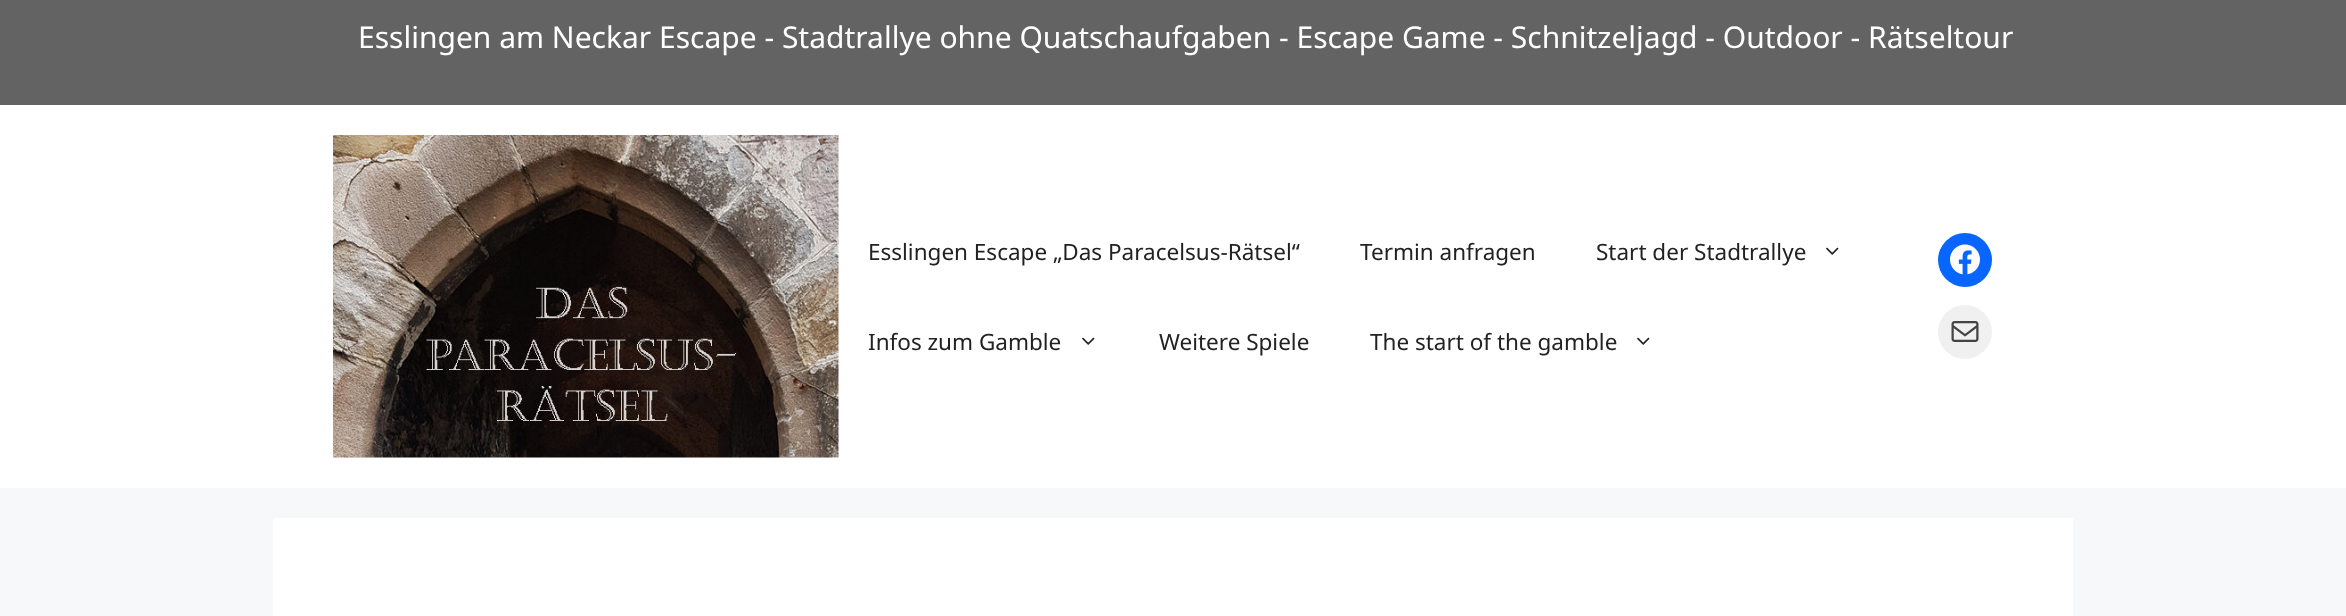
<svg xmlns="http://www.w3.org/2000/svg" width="2346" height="616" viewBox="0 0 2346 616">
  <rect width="100%" height="100%" fill="rgb(247,248,249)"/>
  <rect x="0" y="0" width="2346" height="105" fill="rgb(99,99,99)"/>
  <text x="358" y="48" font-family="Noto Sans" font-size="30" fill="rgb(255,255,255)">Esslingen am Neckar Escape - Stadtrallye ohne Quatschaufgaben - Escape Game - Schnitzeljagd - Outdoor - Rätseltour</text>
  <rect x="0" y="105" width="2346" height="383" fill="rgb(255,255,255)"/>
  <image x="333" y="135" width="506" height="323" href="pic1.png"/>
  <g font-family="Noto Sans" font-size="22.5" fill="rgb(34,34,34)">
    <text x="868" y="260">Esslingen Escape „Das Paracelsus-Rätsel“</text>
    <text x="1360" y="260">Termin anfragen</text>
    <text x="1596" y="260">Start der Stadtrallye</text>
  </g>
  <image x="1826" y="247" width="13" height="8" href="pic2.png"/>
  <text x="868" y="350" font-family="Noto Sans" font-size="22.5" fill="rgb(34,34,34)">Infos zum Gamble</text>
  <image x="1082" y="337" width="13" height="8" href="pic2.png"/>
  <g font-family="Noto Sans" font-size="22.5" fill="rgb(34,34,34)">
    <text x="1159" y="350">Weitere Spiele</text>
    <text x="1370" y="350">The start of the gamble</text>
  </g>
  <image x="1637" y="337" width="13" height="8" href="pic2.png"/>
  <circle cx="1965" cy="260" r="27" fill="rgb(8,102,255)"/>
  <image x="1950" y="244" width="30" height="31" href="pic3.png"/>
  <circle cx="1965" cy="332" r="27" fill="rgb(240,240,240)"/>
  <image x="1951" y="321" width="28" height="21" href="pic4.png"/>
  <rect x="273" y="518" width="1800" height="98" fill="rgb(255,255,255)"/>
</svg>
